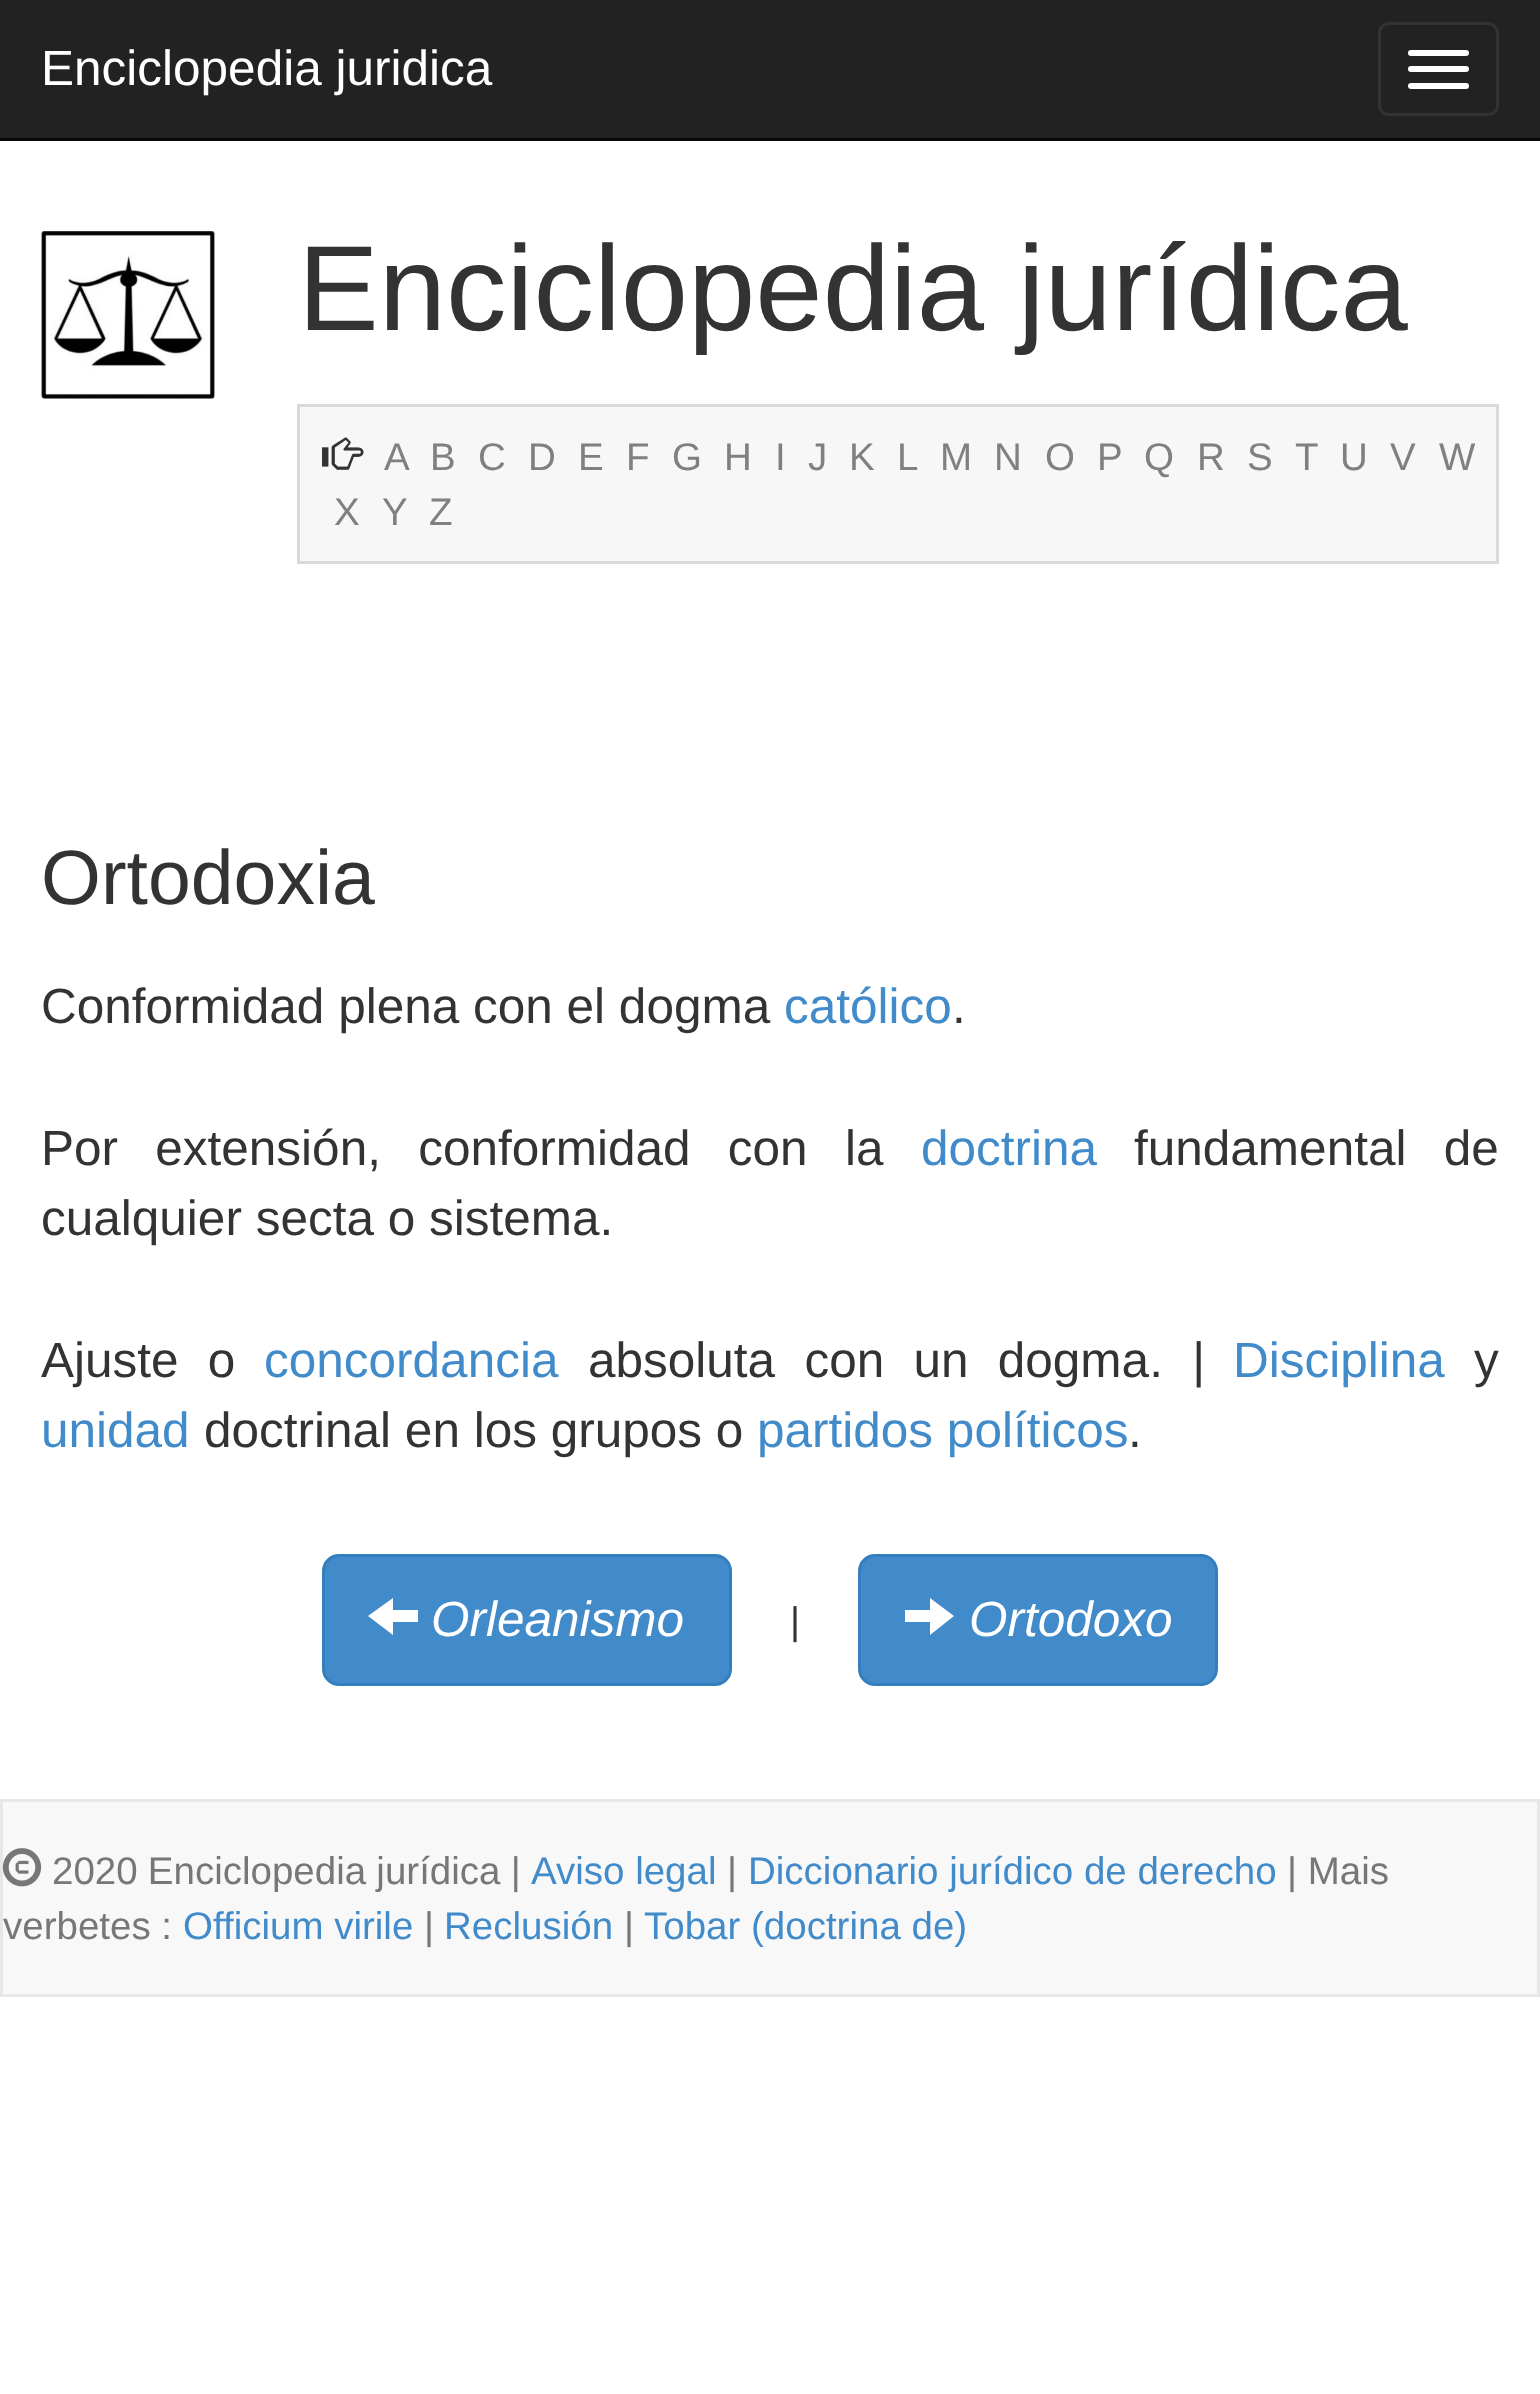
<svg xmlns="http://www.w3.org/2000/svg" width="1540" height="2394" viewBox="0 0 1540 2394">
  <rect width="100%" height="100%" fill="rgb(255,255,255)"/>
  <rect x="0" y="0" width="1540" height="138" fill="rgb(34,34,34)"/>
  <rect x="0" y="138" width="1540" height="3" fill="rgb(8,8,8)"/>
  <text x="41" y="85" font-family="Liberation Sans" font-size="49.5" fill="rgb(255,255,255)">Enciclopedia juridica</text>
  <rect x="1379.5" y="23.5" width="118" height="91" rx="9.5" fill="none" stroke="rgb(51,51,51)" stroke-width="3"/>
  <rect x="1408" y="50" width="61" height="6" rx="3" fill="rgb(255,255,255)"/>
  <rect x="1408" y="66" width="61" height="6" rx="3" fill="rgb(255,255,255)"/>
  <rect x="1408" y="83" width="61" height="6" rx="3" fill="rgb(255,255,255)"/>
  <image x="41" y="231" width="174" height="168" href="pic1.png"/>
  <text x="298" y="330" font-family="Liberation Sans" font-size="121" fill="rgb(51,51,51)">Enciclopedia jurídica</text>
  <rect x="298.5" y="405.5" width="1199" height="157" fill="rgb(247,247,247)" stroke="rgb(218,218,218)" stroke-width="3"/>
  <image x="322" y="437" width="42" height="33" href="pic2.png"/>
  <g font-family="Liberation Sans" font-size="38.5" fill="rgb(128,128,128)">
    <text x="384" y="470">A</text>
    <text x="430" y="470">B</text>
    <text x="478" y="470">C</text>
    <text x="528" y="470">D</text>
    <text x="578" y="470">E</text>
    <text x="626" y="470">F</text>
    <text x="672" y="470">G</text>
    <text x="724" y="470">H</text>
    <text x="775" y="470">I</text>
    <text x="808" y="470">J</text>
    <text x="849" y="470">K</text>
    <text x="897" y="470">L</text>
    <text x="940" y="470">M</text>
    <text x="994" y="470">N</text>
    <text x="1045" y="470">O</text>
    <text x="1097" y="470">P</text>
    <text x="1144" y="470">Q</text>
    <text x="1197" y="470">R</text>
    <text x="1247" y="470">S</text>
    <text x="1295" y="470">T</text>
    <text x="1340" y="470">U</text>
    <text x="1390" y="470">V</text>
    <text x="1439" y="470">W</text>
    <text x="334" y="525">X</text>
    <text x="382" y="525">Y</text>
    <text x="429" y="525">Z</text>
  </g>
  <text x="41" y="904" font-family="Liberation Sans" font-size="77" fill="rgb(51,51,51)">Ortodoxia</text>
  <text x="41" y="1023" font-family="Liberation Sans" font-size="49.5" fill="rgb(51,51,51)">Conformidad plena con el dogma</text>
  <text x="784" y="1023" font-family="Liberation Sans" font-size="49.5" fill="rgb(66,139,202)">católico</text>
  <g font-family="Liberation Sans" font-size="49.5" fill="rgb(51,51,51)">
    <text x="952" y="1023">.</text>
    <text x="41" y="1165" word-spacing="23.5">Por extensión, conformidad con la</text>
  </g>
  <text x="921" y="1165" font-family="Liberation Sans" font-size="49.5" fill="rgb(66,139,202)">doctrina</text>
  <g font-family="Liberation Sans" font-size="49.5" fill="rgb(51,51,51)">
    <text x="1134" y="1165" word-spacing="23.5">fundamental de</text>
    <text x="41" y="1235">cualquier secta o sistema.</text>
    <text x="41" y="1377" word-spacing="15.5">Ajuste o</text>
  </g>
  <text x="264" y="1377" font-family="Liberation Sans" font-size="49.5" fill="rgb(66,139,202)">concordancia</text>
  <text x="588" y="1377" word-spacing="15.5" font-family="Liberation Sans" font-size="49.5" fill="rgb(51,51,51)">absoluta con un dogma. |</text>
  <text x="1233" y="1377" font-family="Liberation Sans" font-size="49.5" fill="rgb(66,139,202)">Disciplina</text>
  <text x="1474" y="1377" font-family="Liberation Sans" font-size="49.5" fill="rgb(51,51,51)">y</text>
  <text x="41" y="1447" font-family="Liberation Sans" font-size="49.5" fill="rgb(66,139,202)">unidad</text>
  <text x="204" y="1447" font-family="Liberation Sans" font-size="49.5" fill="rgb(51,51,51)">doctrinal en los grupos o</text>
  <text x="757" y="1447" font-family="Liberation Sans" font-size="49.5" fill="rgb(66,139,202)">partidos políticos</text>
  <text x="1128" y="1447" font-family="Liberation Sans" font-size="49.5" fill="rgb(51,51,51)">.</text>
  <rect x="323.5" y="1555.5" width="407" height="129" rx="15.5" fill="rgb(66,139,202)" stroke="rgb(53,126,189)" stroke-width="3"/>
  <path d="M418 1622H393V1635L368 1616L393 1598V1610H418Z" fill="rgb(255,255,255)"/>
  <text x="431" y="1636" font-family="Liberation Sans" font-size="49.5" font-style="italic" fill="rgb(255,255,255)">Orleanismo</text>
  <text x="790" y="1634" font-family="Liberation Sans" font-size="38.5" fill="rgb(51,51,51)">|</text>
  <rect x="859.5" y="1555.5" width="357" height="129" rx="15.5" fill="rgb(66,139,202)" stroke="rgb(53,126,189)" stroke-width="3"/>
  <path d="M930 1622H905V1610H930V1598L954 1616L930 1635Z" fill="rgb(255,255,255)"/>
  <text x="969" y="1636" font-family="Liberation Sans" font-size="49.5" font-style="italic" fill="rgb(255,255,255)">Ortodoxo</text>
  <rect x="1.5" y="1800.5" width="1537" height="195" fill="rgb(248,248,248)" stroke="rgb(231,231,231)" stroke-width="3"/>
  <image x="2" y="1848" width="40" height="39" href="pic3.png"/>
  <text x="52" y="1884" word-spacing="-0.5" font-family="Liberation Sans" font-size="38.5" fill="rgb(119,119,119)">2020 Enciclopedia jurídica |</text>
  <text x="531" y="1884" font-family="Liberation Sans" font-size="38.5" fill="rgb(66,139,202)">Aviso legal</text>
  <text x="727" y="1884" font-family="Liberation Sans" font-size="38.5" fill="rgb(119,119,119)">|</text>
  <text x="748" y="1884" font-family="Liberation Sans" font-size="38.5" fill="rgb(66,139,202)">Diccionario jurídico de derecho</text>
  <g font-family="Liberation Sans" font-size="38.5" fill="rgb(119,119,119)">
    <text x="1287" y="1884">| Mais</text>
    <text x="3" y="1939">verbetes :</text>
  </g>
  <text x="183" y="1939" font-family="Liberation Sans" font-size="38.5" fill="rgb(66,139,202)">Officium virile</text>
  <text x="424" y="1939" font-family="Liberation Sans" font-size="38.5" fill="rgb(119,119,119)">|</text>
  <text x="444" y="1939" font-family="Liberation Sans" font-size="38.5" fill="rgb(66,139,202)">Reclusión</text>
  <text x="624" y="1939" font-family="Liberation Sans" font-size="38.5" fill="rgb(119,119,119)">|</text>
  <text x="644" y="1939" font-family="Liberation Sans" font-size="38.5" fill="rgb(66,139,202)">Tobar (doctrina de)</text>
</svg>
